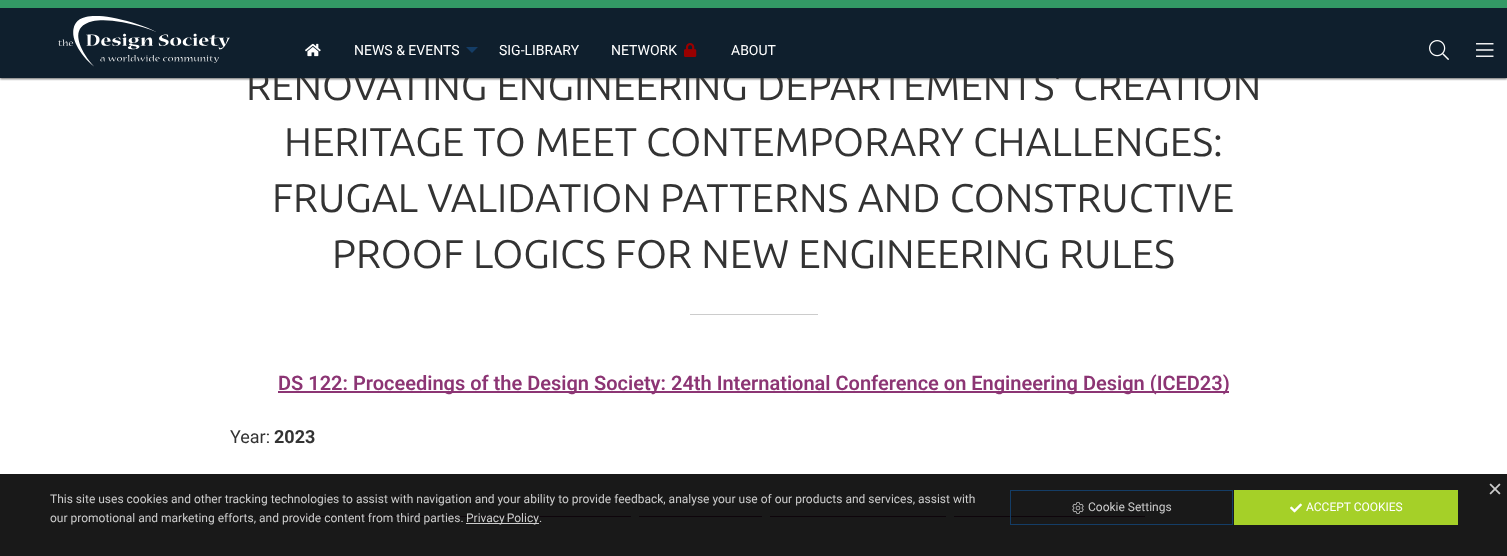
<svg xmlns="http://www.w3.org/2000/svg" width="1507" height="556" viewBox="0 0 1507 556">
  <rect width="100%" height="100%" fill="rgb(255,255,255)"/>
  <rect x="0" y="1" width="1507" height="78" fill="rgba(0,0,0,0.6)" filter="blur(1px)"/>
  <text x="246" y="100" font-family="Ubuntu" font-size="40" fill="rgb(51,51,51)">RENOVATING ENGINEERING DEPARTEMENTS’ CREATION</text>
  <rect x="0" y="8" width="1507" height="70" fill="rgb(15,31,45)"/>
  <rect x="0" y="0" width="1507" height="8" fill="rgb(51,153,101)"/>
  <image x="58" y="16" width="172" height="51" href="pic1.png"/>
  <image x="305" y="43" width="16" height="14" href="pic2.png"/>
  <text x="354" y="55" font-family="Roboto" font-size="14" fill="rgb(255,255,255)">NEWS &amp; EVENTS</text>
  <path d="M466 47H478L472 53Z" fill="rgb(20,61,102)"/>
  <g font-family="Roboto" font-size="14" fill="rgb(255,255,255)">
    <text x="499" y="55">SIG-LIBRARY</text>
    <text x="611" y="55">NETWORK</text>
  </g>
  <image x="684" y="43" width="13" height="14" href="pic3.png"/>
  <text x="731" y="55" font-family="Roboto" font-size="14" fill="rgb(255,255,255)">ABOUT</text>
  <image x="1429" y="40" width="20" height="20" href="pic4.png"/>
  <image x="1476" y="43" width="18" height="14" href="pic5.png"/>
  <g font-family="Ubuntu" font-size="40" fill="rgb(51,51,51)">
    <text x="284" y="156">HERITAGE TO MEET CONTEMPORARY CHALLENGES:</text>
    <text x="272" y="212">FRUGAL VALIDATION PATTERNS AND CONSTRUCTIVE</text>
    <text x="332" y="268">PROOF LOGICS FOR NEW ENGINEERING RULES</text>
  </g>
  <rect x="690" y="314" width="128" height="1" fill="rgb(204,204,204)"/>
  <rect x="278" y="391" width="951" height="2" fill="rgb(140,53,116)"/>
  <text x="278" y="390" font-family="Roboto" font-size="20" font-weight="600" fill="rgb(140,53,116)">DS 122: Proceedings of the Design Society: 24th International Conference on Engineering Design (ICED23)</text>
  <text x="230" y="443" font-family="Roboto" font-size="18" fill="rgb(51,51,51)">Year:</text>
  <text x="274" y="443" font-family="Roboto" font-size="18" font-weight="bold" fill="rgb(51,51,51)">2023</text>
  <rect x="292" y="516" width="153" height="1" fill="rgb(140,53,116)"/>
  <rect x="453" y="516" width="178" height="1" fill="rgb(140,53,116)"/>
  <rect x="639" y="516" width="123" height="1" fill="rgb(140,53,116)"/>
  <rect x="770" y="516" width="176" height="1" fill="rgb(140,53,116)"/>
  <rect x="954" y="516" width="191" height="1" fill="rgb(140,53,116)"/>
  <rect x="0" y="474" width="1507" height="82" fill="rgba(0,0,0,0.9)"/>
  <image x="1489" y="483" width="12" height="12" href="pic6.png"/>
  <g font-family="Roboto" font-size="12" fill="rgb(204,204,204)">
    <text>
      <tspan x="50" y="503">This site uses cookies and other tracking technologies to assist with navigation and your ability to provide feedback, analyse your use of our products and services, assist with</tspan>
      <tspan x="50" y="522">our promotional and marketing efforts, and provide content from third parties.</tspan>
    </text>
  </g>
  <rect x="466" y="523" width="73" height="1" fill="rgb(204,204,204)"/>
  <g font-family="Roboto" font-size="12" fill="rgb(204,204,204)">
    <text x="466" y="522" word-spacing="-1">Privacy Policy</text>
    <text x="539" y="522">.</text>
  </g>
  <rect x="1010.5" y="490.5" width="222" height="34" fill="none" stroke="rgb(20,61,102)"/>
  <image x="1072" y="502" width="12" height="12" href="pic7.png"/>
  <text x="1088" y="511" font-family="Roboto" font-size="12" fill="rgb(204,204,204)">Cookie Settings</text>
  <rect x="1234" y="490" width="224" height="35" fill="rgb(165,208,40)"/>
  <image x="1290" y="503" width="12" height="10" href="pic8.png"/>
  <text x="1306" y="511" font-family="Roboto" font-size="12" fill="rgb(255,255,255)">ACCEPT COOKIES</text>
</svg>
